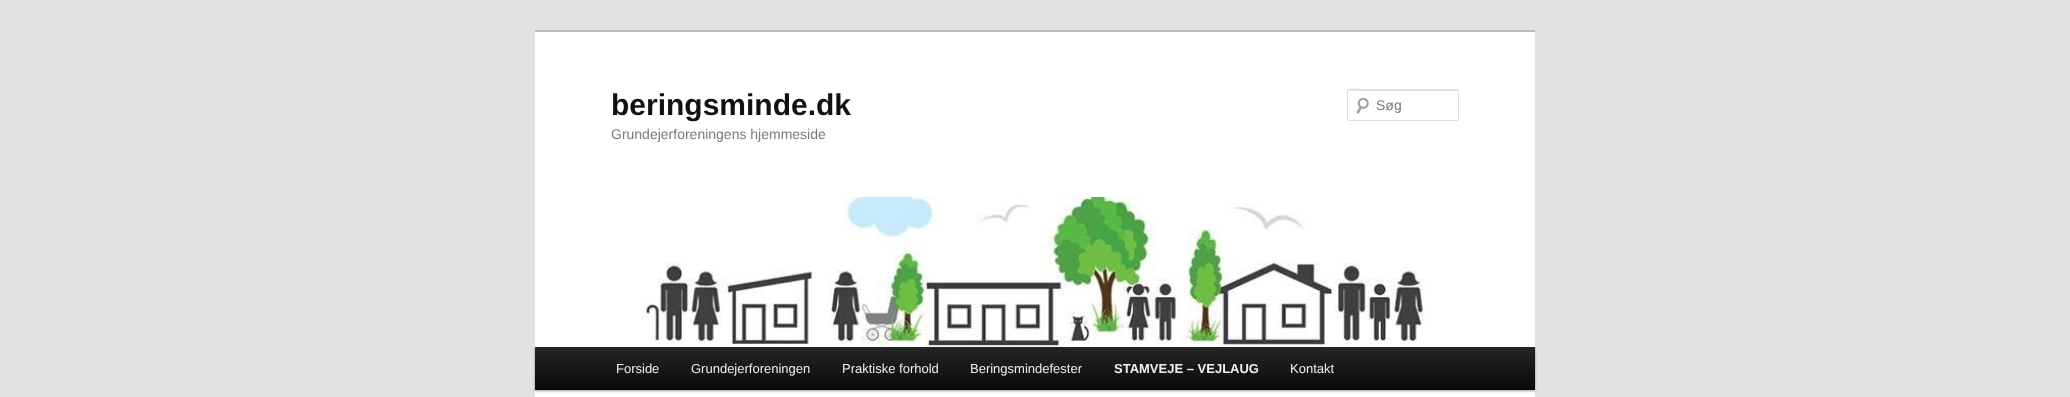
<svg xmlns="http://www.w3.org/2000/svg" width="2070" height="397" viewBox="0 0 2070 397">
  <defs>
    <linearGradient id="g1" gradientUnits="userSpaceOnUse" x1="1035" y1="347" x2="1035" y2="390"><stop offset="0" stop-color="rgb(37,37,37)"/><stop offset="1" stop-color="rgb(10,10,10)"/></linearGradient>
  </defs>
  <rect width="100%" height="100%" fill="rgb(226,226,226)"/>
  <rect x="535" y="32" width="1000" height="365" fill="rgb(255,255,255)"/>
  <rect x="535" y="30" width="1000" height="2" fill="rgb(187,187,187)"/>
  <text x="611" y="115" font-family="Liberation Sans" font-size="30" font-weight="bold" fill="rgb(17,17,17)">beringsminde.dk</text>
  <text x="611" y="139" font-family="Liberation Sans" font-size="14" fill="rgb(122,122,122)">Grundejerforeningens hjemmeside</text>
  <image x="1356" y="97" width="13" height="17" href="pic1.png"/>
  <path d="M1349 91H1458V92L1457 90H1367C1363 90 1348 85 1348 92C1348 91 1348 91 1349 91Z" fill="rgb(230,230,230)"/>
  <rect x="1347.5" y="89.5" width="111" height="31" rx="1.5" fill="none" stroke="rgb(221,221,221)"/>
  <text x="1376" y="110" font-family="Liberation Sans" font-size="14" fill="rgb(122,122,122)">Søg</text>
  <rect x="535" y="348" width="1000" height="43" fill="rgba(0,0,0,0.4)" filter="blur(1px)"/>
  <image x="535" y="197" width="1000" height="150" href="pic2.png"/>
  <rect x="535" y="347" width="1000" height="43" fill="url(#g1)"/>
  <g font-family="Liberation Sans" font-size="13" fill="rgb(238,238,238)">
    <text x="616" y="373">Forside</text>
    <text x="691" y="373">Grundejerforeningen</text>
    <text x="842" y="373">Praktiske forhold</text>
    <text x="970" y="373">Beringsmindefester</text>
  </g>
  <text x="1114" y="373" font-family="Liberation Sans" font-size="13" font-weight="bold" fill="rgb(238,238,238)">STAMVEJE – VEJLAUG</text>
  <text x="1290" y="373" font-family="Liberation Sans" font-size="13" fill="rgb(238,238,238)">Kontakt</text>
</svg>
